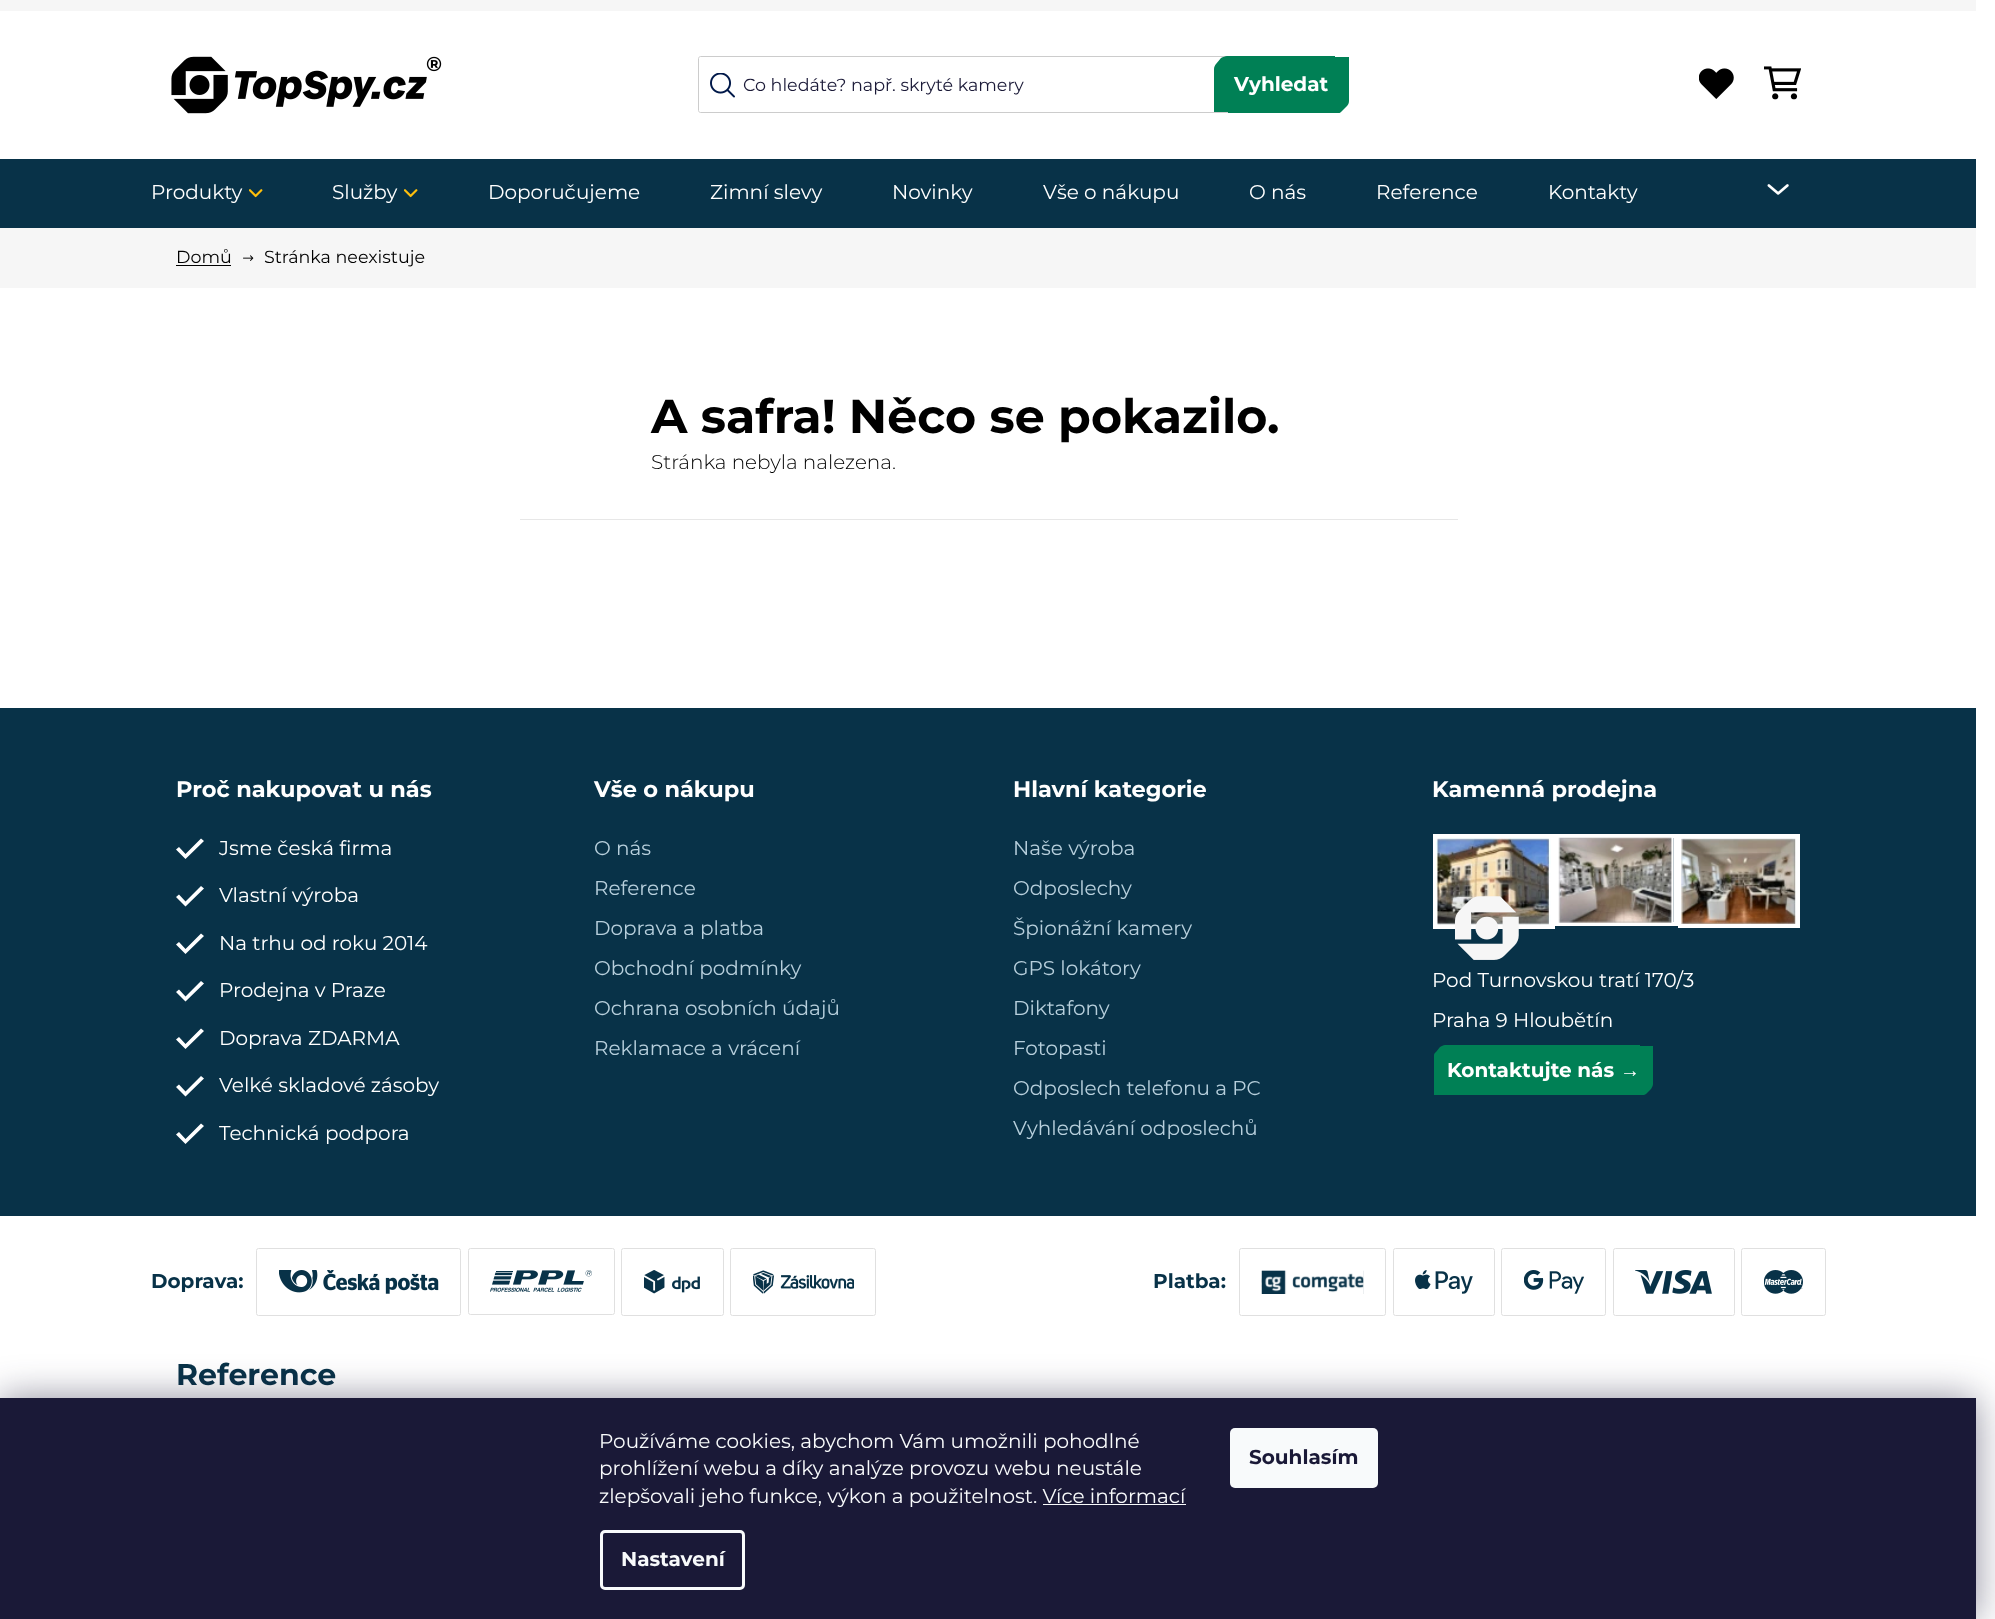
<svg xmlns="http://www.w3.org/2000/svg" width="1995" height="1619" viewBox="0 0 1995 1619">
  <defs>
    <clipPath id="clip1"><rect x="1333" y="56" width="16" height="57"/></clipPath>
    <clipPath id="clip2"><rect x="0" y="0" width="1976" height="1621"/></clipPath>
  </defs>
  <rect width="100%" height="100%" fill="rgb(255,255,255)"/>
  <rect x="0" y="0" width="1976" height="11" fill="rgb(246,246,246)"/>
  <image x="171" y="56" width="271" height="58" href="pic1.png"/>
  <path d="M700.5 56.5H1332.5C1333.5 56.5 1334.5 57.5 1334.5 58.5V88C1334.5 101.5 1323.5 112.5 1310 112.5H700.5C699.5 112.5 698.5 111.5 698.5 110.5V58.5C698.5 57.5 699.5 56.5 700.5 56.5Z" fill="none" stroke="rgb(204,204,204)"/>
  <image x="710" y="73" width="25" height="25" href="pic2.png"/>
  <text x="743" y="91" font-family="Montserrat" font-size="17.5" fill="rgb(26,25,55)">Co hledáte? např. skryté kamery</text>
  <rect x="1228" y="56" width="107" height="57" fill="rgb(0,128,85)"/>
  <path d="M1227 56C1225 56 1223 57 1221 58L1216 64C1215 65 1214 67 1214 69V112H1230V56Z" fill="rgb(0,128,85)"/>
  <text x="1234" y="91" font-family="Montserrat" font-size="20" font-weight="bold" fill="rgb(255,255,255)">Vyhledat</text>
  <g clip-path="url(#clip1)">
    <path d="M1336 114C1338 114 1340 113 1341 112L1347 106C1348 105 1349 103 1349 101V57H1332V114Z" fill="rgb(0,128,85)"/>
  </g>
  <image x="1699" y="68" width="35" height="31" href="pic3.png"/>
  <image x="1764" y="66" width="37" height="34" href="pic4.png"/>
  <rect x="0" y="159" width="1976" height="69" fill="rgb(8,50,72)"/>
  <text x="151" y="199" font-family="Montserrat" font-size="20" fill="rgb(255,255,255)">Produkty</text>
  <image x="249" y="189" width="14" height="9" href="pic5.png"/>
  <text x="332" y="199" font-family="Montserrat" font-size="20" fill="rgb(255,255,255)">Služby</text>
  <image x="404" y="189" width="14" height="9" href="pic5.png"/>
  <g font-family="Montserrat" font-size="20" fill="rgb(255,255,255)">
    <text x="488" y="199">Doporučujeme</text>
    <text x="710" y="199">Zimní slevy</text>
    <text x="892" y="199">Novinky</text>
    <text x="1043" y="199">Vše o nákupu</text>
    <text x="1249" y="199">O nás</text>
    <text x="1376" y="199">Reference</text>
    <text x="1548" y="199">Kontakty</text>
  </g>
  <image x="1767" y="184" width="22" height="11" href="pic6.png"/>
  <rect x="0" y="228" width="1826" height="60" fill="rgb(246,246,246)"/>
  <text x="176" y="263" font-family="Montserrat" font-size="17.5" fill="rgb(0,0,0)">Domů</text>
  <rect x="176" y="265" width="55" height="1" fill="rgb(0,0,0)"/>
  <image x="243" y="255" width="11" height="6" href="pic7.png"/>
  <text x="264" y="263" font-family="Montserrat" font-size="17.5" fill="rgb(0,0,0)">Stránka neexistuje</text>
  <g clip-path="url(#clip2)">
    <path d="M151 288H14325V228H1826V288Z" fill="rgb(246,246,246)"/>
  </g>
  <rect x="520" y="519" width="938" height="1" fill="rgb(231,231,231)"/>
  <text x="651" y="433" font-family="Montserrat" font-size="47.5" font-weight="bold" fill="rgb(0,0,0)">A safra! Něco se pokazilo.</text>
  <text x="651" y="469" font-family="Montserrat" font-size="20" font-weight="300" fill="rgb(0,0,0)">Stránka nebyla nalezena.</text>
  <rect x="0" y="708" width="1976" height="508" fill="rgb(8,50,72)"/>
  <text x="176" y="797" font-family="Montserrat" font-size="22.5" font-weight="bold" fill="rgb(255,255,255)">Proč nakupovat u nás</text>
  <path d="M176 849.5L185.5 859L204 841L201 838.5L185.5 854L179 847Z" fill="rgb(255,255,255)"/>
  <text x="219" y="855" font-family="Montserrat" font-size="20" fill="rgb(255,255,255)">Jsme česká firma</text>
  <path d="M176 897L185.5 906.5L204 888.5L201 886L185.5 901.5L179 894.5Z" fill="rgb(255,255,255)"/>
  <text x="219" y="902" font-family="Montserrat" font-size="20" fill="rgb(255,255,255)">Vlastní výroba</text>
  <path d="M176 944.5L185.5 954L204 936L201 933.5L185.5 949L179 942Z" fill="rgb(255,255,255)"/>
  <text x="219" y="950" font-family="Montserrat" font-size="20" fill="rgb(255,255,255)">Na trhu od roku 2014</text>
  <path d="M176 992L185.5 1001.5L204 983.5L201 981L185.5 996.5L179 989.5Z" fill="rgb(255,255,255)"/>
  <text x="219" y="997" font-family="Montserrat" font-size="20" fill="rgb(255,255,255)">Prodejna v Praze</text>
  <path d="M176 1039.5L185.5 1049L204 1031L201 1028.5L185.5 1044L179 1037Z" fill="rgb(255,255,255)"/>
  <text x="219" y="1045" font-family="Montserrat" font-size="20" fill="rgb(255,255,255)">Doprava ZDARMA</text>
  <path d="M176 1087L185.5 1096.5L204 1078.5L201 1076L185.5 1091.5L179 1084.5Z" fill="rgb(255,255,255)"/>
  <text x="219" y="1092" font-family="Montserrat" font-size="20" fill="rgb(255,255,255)">Velké skladové zásoby</text>
  <path d="M176 1134.5L185.5 1144L204 1126L201 1123.5L185.5 1139L179 1132Z" fill="rgb(255,255,255)"/>
  <text x="219" y="1140" font-family="Montserrat" font-size="20" fill="rgb(255,255,255)">Technická podpora</text>
  <text x="594" y="797" font-family="Montserrat" font-size="22.5" font-weight="bold" fill="rgb(255,255,255)">Vše o nákupu</text>
  <g font-family="Montserrat" font-size="20" fill="rgb(183,207,220)">
    <text x="594" y="855">O nás</text>
    <text x="594" y="895">Reference</text>
    <text x="594" y="935">Doprava a platba</text>
    <text x="594" y="975">Obchodní podmínky</text>
    <text x="594" y="1015">Ochrana osobních údajů</text>
    <text x="594" y="1055">Reklamace a vrácení</text>
  </g>
  <text x="1013" y="797" font-family="Montserrat" font-size="22.5" font-weight="bold" fill="rgb(255,255,255)">Hlavní kategorie</text>
  <g font-family="Montserrat" font-size="20" fill="rgb(183,207,220)">
    <text x="1013" y="855">Naše výroba</text>
    <text x="1013" y="895">Odposlechy</text>
    <text x="1013" y="935">Špionážní kamery</text>
    <text x="1013" y="975">GPS lokátory</text>
    <text x="1013" y="1015">Diktafony</text>
    <text x="1013" y="1055">Fotopasti</text>
    <text x="1013" y="1095">Odposlech telefonu a PC</text>
    <text x="1013" y="1135">Vyhledávání odposlechů</text>
  </g>
  <text x="1432" y="797" font-family="Montserrat" font-size="22.5" font-weight="bold" fill="rgb(255,255,255)">Kamenná prodejna</text>
  <rect x="1435" y="836" width="118" height="91" fill="none" stroke="rgb(255,255,255)" stroke-width="4"/>
  <image x="1436" y="837" width="115" height="88" href="pic8.png"/>
  <image x="1455" y="896" width="64" height="64" href="pic9.png"/>
  <rect x="1557" y="836" width="119" height="88" fill="none" stroke="rgb(255,255,255)" stroke-width="4"/>
  <image x="1558" y="837" width="116" height="86" href="pic10.png"/>
  <rect x="1680" y="836" width="118" height="90" fill="none" stroke="rgb(255,255,255)" stroke-width="4"/>
  <image x="1681" y="838" width="115" height="86" href="pic11.png"/>
  <g font-family="Montserrat" font-size="20" fill="rgb(255,255,255)">
    <text x="1432" y="987">Pod Turnovskou tratí 170/3</text>
    <text x="1432" y="1027">Praha 9 Hloubětín</text>
  </g>
  <rect x="1448" y="1045" width="192" height="50" fill="rgb(0,128,85)"/>
  <path d="M1445 1045C1443 1045 1442 1046 1440 1047L1436 1052C1434 1053 1434 1055 1434 1056V1095H1448V1045Z" fill="rgb(0,128,85)"/>
  <text x="1447" y="1077" font-family="Montserrat" font-size="20" font-weight="bold" fill="rgb(255,255,255)">Kontaktujte nás</text>
  <text x="1620" y="1077" font-family="Liberation Serif" font-size="20" font-weight="bold" fill="rgb(255,255,255)">→</text>
  <path d="M1642 1095C1643 1095 1645 1095 1646 1094L1651 1089C1652 1087 1653 1086 1653 1084V1046H1639V1095Z" fill="rgb(0,128,85)"/>
  <text x="151" y="1288" font-family="Montserrat" font-size="20" font-weight="bold" fill="rgb(8,50,72)">Doprava:</text>
  <rect x="256.5" y="1248.5" width="204" height="67" rx="2" fill="none" stroke="rgb(224,224,224)"/>
  <image x="279" y="1270" width="160" height="24" href="pic12.png"/>
  <rect x="468.5" y="1248.5" width="146" height="66" rx="2" fill="none" stroke="rgb(224,224,224)"/>
  <image x="490" y="1270" width="102" height="22" href="pic13.png"/>
  <rect x="621.5" y="1248.5" width="102" height="67" rx="2" fill="none" stroke="rgb(224,224,224)"/>
  <image x="644" y="1270" width="56" height="24" href="pic14.png"/>
  <rect x="730.5" y="1248.5" width="145" height="67" rx="2" fill="none" stroke="rgb(224,224,224)"/>
  <image x="753" y="1270" width="101" height="24" href="pic15.png"/>
  <text x="1153" y="1288" font-family="Montserrat" font-size="20" font-weight="bold" fill="rgb(8,50,72)">Platba:</text>
  <rect x="1239.5" y="1248.5" width="146" height="67" rx="2" fill="none" stroke="rgb(224,224,224)"/>
  <image x="1261" y="1270" width="103" height="24" href="pic16.png"/>
  <rect x="1393.5" y="1248.5" width="101" height="67" rx="2" fill="none" stroke="rgb(224,224,224)"/>
  <image x="1415" y="1270" width="58" height="24" href="pic17.png"/>
  <rect x="1501.5" y="1248.5" width="104" height="67" rx="2" fill="none" stroke="rgb(224,224,224)"/>
  <image x="1524" y="1270" width="60" height="24" href="pic18.png"/>
  <rect x="1613.5" y="1248.5" width="121" height="67" rx="2" fill="none" stroke="rgb(224,224,224)"/>
  <image x="1635" y="1270" width="77" height="24" href="pic19.png"/>
  <rect x="1741.5" y="1248.5" width="84" height="67" rx="2" fill="none" stroke="rgb(224,224,224)"/>
  <image x="1764" y="1270" width="39" height="24" href="pic20.png"/>
  <text x="176" y="1385" font-family="Montserrat" font-size="30" font-weight="bold" fill="rgb(8,50,72)">Reference</text>
  <rect x="0" y="1398" width="1976" height="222" fill="rgba(27,25,57,0.5)" filter="blur(19px)"/>
  <rect x="0" y="1398" width="1976" height="221" fill="rgb(26,25,55)"/>
  <g font-family="Montserrat" font-size="20" fill="rgb(248,250,251)">
    <text>
      <tspan x="599" y="1448">Používáme cookies, abychom Vám umožnili pohodlné</tspan>
      <tspan x="599" y="1475">prohlížení webu a díky analýze provozu webu neustále</tspan>
      <tspan x="599" y="1503">zlepšovali jeho funkce, výkon a použitelnost. Více informací</tspan>
    </text>
  </g>
  <rect x="1043" y="1504" width="143" height="1" fill="rgb(248,250,251)"/>
  <rect x="601.5" y="1531.5" width="142" height="57" rx="3.5" fill="none" stroke="rgb(248,250,251)" stroke-width="3"/>
  <text x="621" y="1566" font-family="Montserrat" font-size="20" font-weight="bold" fill="rgb(248,250,251)">Nastavení</text>
  <rect x="1230" y="1428" width="148" height="60" rx="5" fill="rgb(248,250,251)"/>
  <text x="1249" y="1464" font-family="Montserrat" font-size="20" font-weight="bold" fill="rgb(26,25,55)">Souhlasím</text>
</svg>
